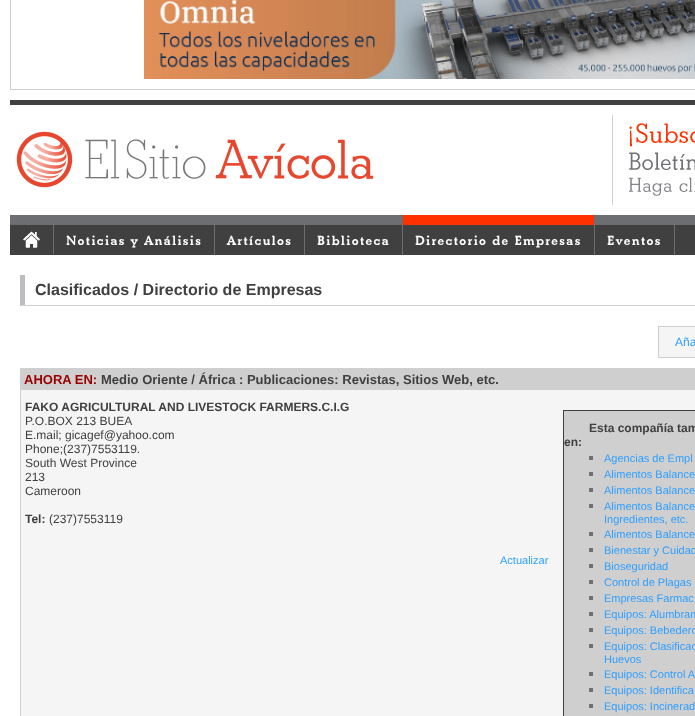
<svg xmlns="http://www.w3.org/2000/svg" width="695" height="716" viewBox="0 0 695 716">
  <rect width="100%" height="100%" fill="rgb(255,255,255)"/>
  <rect x="10.5" y="-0.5" width="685" height="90" fill="none" stroke="rgb(207,207,207)"/>
  <image x="144" y="0" width="551" height="79" href="pic1.png"/>
  <rect x="10" y="100" width="685" height="5" fill="rgb(64,64,65)"/>
  <image x="16" y="131" width="358" height="57" href="pic2.png"/>
  <rect x="612" y="115" width="1" height="90" fill="rgb(207,207,207)"/>
  <image x="629" y="123" width="66" height="73" href="pic3.png"/>
  <rect x="10" y="225" width="685" height="30" fill="rgb(64,64,65)"/>
  <image x="675" y="215" width="20" height="10" href="pic4.png"/>
  <image x="10" y="215" width="43" height="10" href="pic5.png"/>
  <rect x="53" y="215" width="1" height="39" fill="rgb(109,110,113)"/>
  <image x="23" y="231" width="17" height="17" href="pic6.png"/>
  <image x="54" y="215" width="160" height="10" href="pic7.png"/>
  <rect x="214" y="215" width="1" height="40" fill="rgb(109,110,113)"/>
  <text x="66" y="245" font-family="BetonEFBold" font-size="14" font-weight="bold" letter-spacing="1.4" fill="rgb(255,255,255)">Noticias y Análisis</text>
  <image x="215" y="215" width="89" height="10" href="pic8.png"/>
  <rect x="304" y="215" width="1" height="40" fill="rgb(109,110,113)"/>
  <text x="227" y="245" font-family="BetonEFBold" font-size="14" font-weight="bold" letter-spacing="1.4" fill="rgb(255,255,255)">Artículos</text>
  <image x="305" y="215" width="97" height="10" href="pic9.png"/>
  <rect x="402" y="215" width="1" height="40" fill="rgb(109,110,113)"/>
  <text x="317" y="245" font-family="BetonEFBold" font-size="14" font-weight="bold" letter-spacing="1.4" fill="rgb(255,255,255)">Biblioteca</text>
  <image x="403" y="215" width="191" height="14" href="pic10.png"/>
  <rect x="594" y="215" width="1" height="40" fill="rgb(109,110,113)"/>
  <text x="415" y="245" font-family="BetonEFBold" font-size="14" font-weight="bold" letter-spacing="1.4" fill="rgb(255,255,255)">Directorio de Empresas</text>
  <image x="595" y="215" width="79" height="10" href="pic11.png"/>
  <rect x="674" y="215" width="1" height="40" fill="rgb(109,110,113)"/>
  <text x="607" y="245" font-family="BetonEFBold" font-size="14" font-weight="bold" letter-spacing="1.4" fill="rgb(255,255,255)">Eventos</text>
  <path d="M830 306H20L25 305H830Z" fill="rgb(207,207,207)"/>
  <path d="M20 306V275H25V305Z" fill="rgb(188,189,192)"/>
  <text x="35" y="295" font-family="Liberation Sans" font-size="16" font-weight="bold" fill="rgb(64,64,65)">Clasificados / Directorio de Empresas</text>
  <rect x="658.5" y="326.5" width="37" height="31" fill="rgb(245,245,245)" stroke="rgb(207,207,207)"/>
  <text x="675" y="346" font-family="Liberation Sans" font-size="12" fill="rgb(46,159,255)">Aña</text>
  <rect x="21" y="390" width="674" height="326" fill="rgb(245,245,245)"/>
  <rect x="20.5" y="368.5" width="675" height="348" fill="none" stroke="rgb(207,207,207)"/>
  <rect x="21" y="369" width="674" height="21" fill="rgb(207,207,207)"/>
  <text x="24" y="384" font-family="Liberation Sans" font-size="13" font-weight="bold" fill="rgb(153,0,0)">AHORA EN:</text>
  <text x="101" y="384" font-family="Liberation Sans" font-size="13" font-weight="bold" fill="rgb(64,64,65)">Medio Oriente / África : Publicaciones: Revistas, Sitios Web, etc.</text>
  <text x="25" y="411" font-family="Liberation Sans" font-size="12" font-weight="bold" fill="rgb(64,64,65)">FAKO AGRICULTURAL AND LIVESTOCK FARMERS.C.I.G</text>
  <g font-family="Liberation Sans" font-size="12" fill="rgb(64,64,65)">
    <text>
      <tspan x="25" y="425">P.O.BOX 213 BUEA</tspan>
      <tspan x="25" y="439">E.mail; gicagef@yahoo.com</tspan>
    </text>
  </g>
  <rect x="563.5" y="410.5" width="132" height="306" fill="rgb(207,207,207)" stroke="rgb(64,64,65)"/>
  <g font-family="Liberation Sans" font-size="12" font-weight="bold" fill="rgb(64,64,65)">
    <text x="589" y="432">Esta compañía tam</text>
    <text x="564" y="446">en:</text>
  </g>
  <rect x="589" y="456" width="4" height="4" fill="rgb(109,110,113)"/>
  <text x="604" y="462" font-family="Liberation Sans" font-size="11" fill="rgb(46,159,255)">Agencias de Empl</text>
  <rect x="589" y="472" width="4" height="4" fill="rgb(109,110,113)"/>
  <text x="604" y="478" font-family="Liberation Sans" font-size="11" fill="rgb(46,159,255)">Alimentos Balance</text>
  <rect x="589" y="488" width="4" height="4" fill="rgb(109,110,113)"/>
  <text x="604" y="494" font-family="Liberation Sans" font-size="11" fill="rgb(46,159,255)">Alimentos Balance</text>
  <rect x="589" y="504" width="4" height="4" fill="rgb(109,110,113)"/>
  <g font-family="Liberation Sans" font-size="11" fill="rgb(46,159,255)">
    <text>
      <tspan x="604" y="510">Alimentos Balance</tspan>
      <tspan x="604" y="523">Ingredientes, etc.</tspan>
    </text>
  </g>
  <rect x="589" y="532" width="4" height="4" fill="rgb(109,110,113)"/>
  <text x="604" y="538" font-family="Liberation Sans" font-size="11" fill="rgb(46,159,255)">Alimentos Balance</text>
  <rect x="589" y="548" width="4" height="4" fill="rgb(109,110,113)"/>
  <text x="604" y="554" font-family="Liberation Sans" font-size="11" fill="rgb(46,159,255)">Bienestar y Cuidad</text>
  <rect x="589" y="564" width="4" height="4" fill="rgb(109,110,113)"/>
  <text x="604" y="570" font-family="Liberation Sans" font-size="11" fill="rgb(46,159,255)">Bioseguridad</text>
  <rect x="589" y="580" width="4" height="4" fill="rgb(109,110,113)"/>
  <text x="604" y="586" font-family="Liberation Sans" font-size="11" fill="rgb(46,159,255)">Control de Plagas</text>
  <rect x="589" y="596" width="4" height="4" fill="rgb(109,110,113)"/>
  <text x="604" y="602" font-family="Liberation Sans" font-size="11" fill="rgb(46,159,255)">Empresas Farmac</text>
  <rect x="589" y="612" width="4" height="4" fill="rgb(109,110,113)"/>
  <text x="604" y="618" font-family="Liberation Sans" font-size="11" fill="rgb(46,159,255)">Equipos: Alumbram</text>
  <rect x="589" y="628" width="4" height="4" fill="rgb(109,110,113)"/>
  <text x="604" y="634" font-family="Liberation Sans" font-size="11" fill="rgb(46,159,255)">Equipos: Bebedero</text>
  <rect x="589" y="644" width="4" height="4" fill="rgb(109,110,113)"/>
  <g font-family="Liberation Sans" font-size="11" fill="rgb(46,159,255)">
    <text>
      <tspan x="604" y="650">Equipos: Clasificac</tspan>
      <tspan x="604" y="663">Huevos</tspan>
    </text>
  </g>
  <rect x="589" y="672" width="4" height="4" fill="rgb(109,110,113)"/>
  <text x="604" y="678" font-family="Liberation Sans" font-size="11" fill="rgb(46,159,255)">Equipos: Control A</text>
  <rect x="589" y="688" width="4" height="4" fill="rgb(109,110,113)"/>
  <text x="604" y="694" font-family="Liberation Sans" font-size="11" fill="rgb(46,159,255)">Equipos: Identifica</text>
  <rect x="589" y="704" width="4" height="4" fill="rgb(109,110,113)"/>
  <text x="604" y="710" font-family="Liberation Sans" font-size="11" fill="rgb(46,159,255)">Equipos: Incinerad</text>
  <g font-family="Liberation Sans" font-size="12" fill="rgb(64,64,65)">
    <text>
      <tspan x="25" y="453">Phone;(237)7553119.</tspan>
      <tspan x="25" y="467">South West Province</tspan>
      <tspan x="25" y="481">213</tspan>
      <tspan x="25" y="495">Cameroon</tspan>
    </text>
  </g>
  <text x="25" y="523" font-family="Liberation Sans" font-size="12" font-weight="bold" fill="rgb(64,64,65)">Tel:</text>
  <text x="49" y="523" font-family="Liberation Sans" font-size="12" fill="rgb(64,64,65)">(237)7553119</text>
  <text x="500" y="564" font-family="Liberation Sans" font-size="11" fill="rgb(46,159,255)">Actualizar</text>
</svg>
